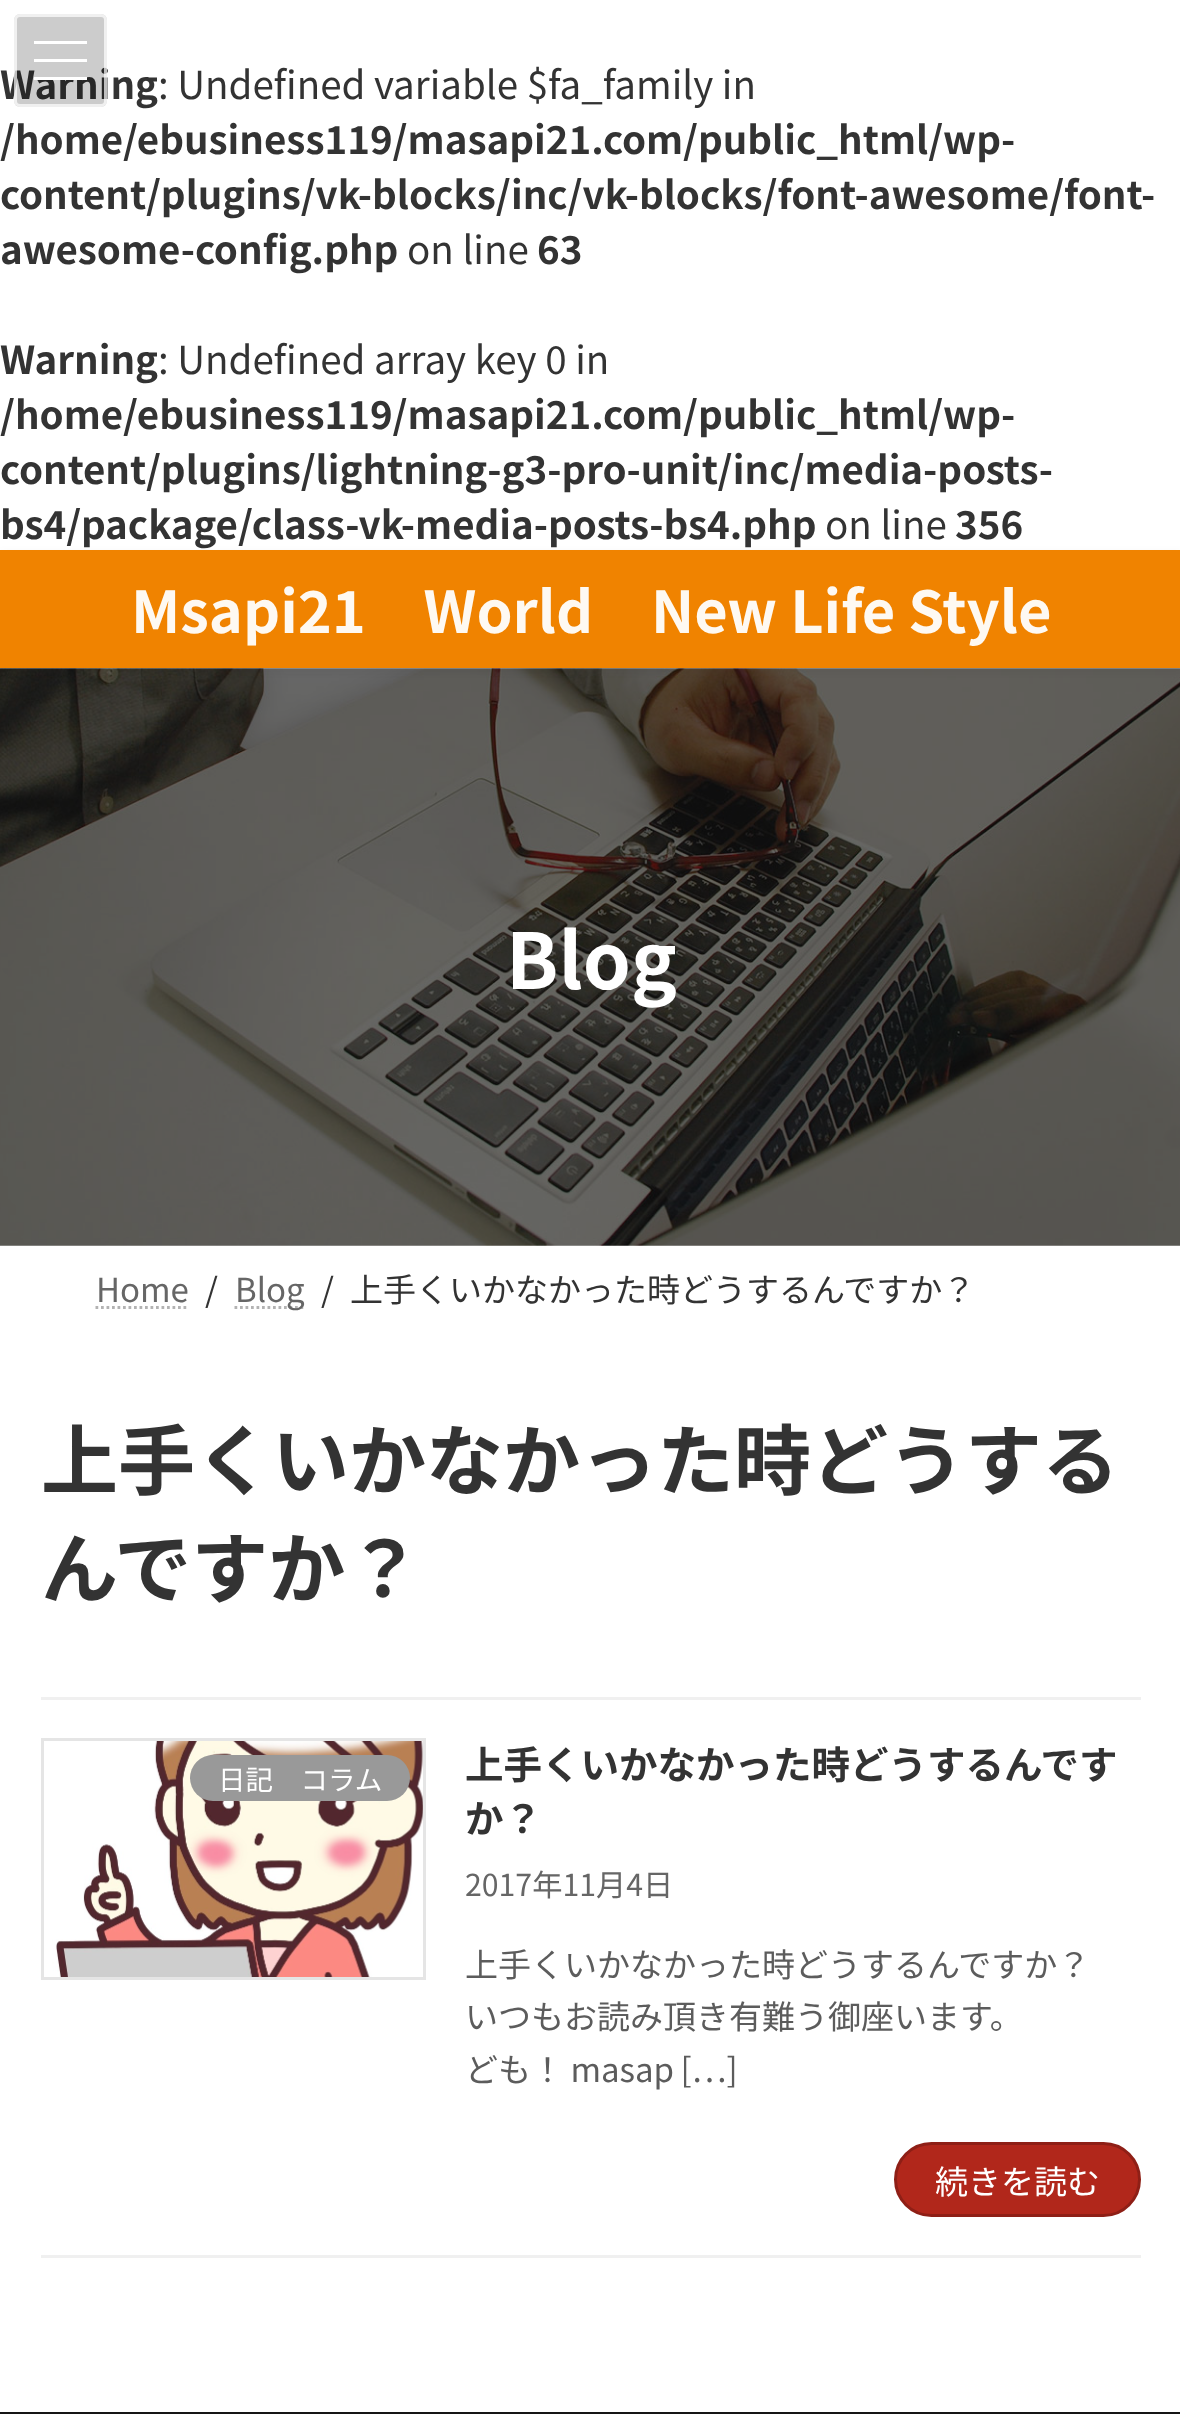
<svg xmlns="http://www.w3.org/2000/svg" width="1180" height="2414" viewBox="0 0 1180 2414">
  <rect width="100%" height="100%" fill="rgb(255,255,255)"/>
  <text x="0" y="99" font-family="Noto Sans JP" font-size="38.5" font-weight="bold" fill="rgb(51,51,51)">Warning</text>
  <rect x="14" y="14" width="93" height="93" rx="6" fill="rgba(0,0,0,0.2)"/>
  <rect x="34" y="41" width="53" height="3" fill="rgb(255,255,255)"/>
  <rect x="34" y="59" width="53" height="3" fill="rgb(255,255,255)"/>
  <rect x="34" y="77" width="53" height="3" fill="rgb(255,255,255)"/>
  <rect x="15.5" y="15.5" width="90" height="90" rx="4.5" fill="none" stroke="rgba(255,255,255,0.7)" stroke-width="3"/>
  <text x="158" y="99" font-family="Noto Sans JP" font-size="38.5" fill="rgb(51,51,51)">: Undefined variable $fa_family in</text>
  <g font-family="Noto Sans JP" font-size="38.5" font-weight="bold" fill="rgb(51,51,51)">
    <text>
      <tspan x="0" y="154">/home/ebusiness119/masapi21.com/public_html/wp-</tspan>
      <tspan x="0" y="209">content/plugins/vk-blocks/inc/vk-blocks/font-awesome/font-</tspan>
      <tspan x="0" y="264">awesome-config.php</tspan>
    </text>
  </g>
  <text x="407" y="264" font-family="Noto Sans JP" font-size="38.5" fill="rgb(51,51,51)">on line</text>
  <g font-family="Noto Sans JP" font-size="38.5" font-weight="bold" fill="rgb(51,51,51)">
    <text x="537" y="264">63</text>
    <text x="0" y="374">Warning</text>
  </g>
  <text x="158" y="374" font-family="Noto Sans JP" font-size="38.5" fill="rgb(51,51,51)">: Undefined array key 0 in</text>
  <g font-family="Noto Sans JP" font-size="38.5" font-weight="bold" fill="rgb(51,51,51)">
    <text>
      <tspan x="0" y="429">/home/ebusiness119/masapi21.com/public_html/wp-</tspan>
      <tspan x="0" y="484">content/plugins/lightning-g3-pro-unit/inc/media-posts-</tspan>
      <tspan x="0" y="539">bs4/package/class-vk-media-posts-bs4.php</tspan>
    </text>
  </g>
  <text x="825" y="539" font-family="Noto Sans JP" font-size="38.5" fill="rgb(51,51,51)">on line</text>
  <text x="955" y="539" font-family="Noto Sans JP" font-size="38.5" font-weight="bold" fill="rgb(51,51,51)">356</text>
  <image x="0" y="668" width="1180" height="578" href="pic1.png"/>
  <rect x="0" y="553" width="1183" height="118" fill="rgba(0,0,0,0.05)" filter="blur(4px)"/>
  <rect x="0" y="550" width="1180" height="118" fill="rgb(240,131,0)"/>
  <text x="131" y="633" font-family="Noto Sans JP" font-size="57.75" font-weight="bold" fill="rgb(254,249,242)">Msapi21　World　New Life Style</text>
  <text x="506" y="989" font-family="Noto Sans JP" font-size="77" font-weight="bold" fill="rgb(255,255,255)">Blog</text>
  <text x="96" y="1302" font-family="Noto Sans JP" font-size="33" fill="rgb(102,102,102)">Home</text>
  <path d="M95.5 1307.5H188.5" fill="none" stroke="rgb(179,179,179)" stroke-width="2.8" stroke-dasharray="2.75 2.75"/>
  <text x="205" y="1302" font-family="Noto Sans JP" font-size="33" fill="rgb(51,51,51)">/</text>
  <path d="M234.5 1307.5H304.5" fill="none" stroke="rgb(179,179,179)" stroke-width="2.8" stroke-dasharray="2.75 2.75"/>
  <text x="235" y="1302" font-family="Noto Sans JP" font-size="33" fill="rgb(102,102,102)">Blog</text>
  <g font-family="Noto Sans JP" font-size="33" fill="rgb(51,51,51)">
    <text x="321" y="1302">/</text>
    <text x="350" y="1302">上手くいかなかった時どうするんですか？</text>
  </g>
  <g font-family="Noto Sans JP" font-size="77" font-weight="bold" fill="rgb(51,51,51)">
    <text>
      <tspan x="41" y="1489">上手くいかなかった時どうする</tspan>
      <tspan x="41" y="1597">んですか？</tspan>
    </text>
  </g>
  <rect x="41" y="1697" width="1100" height="3" fill="rgb(240,240,240)"/>
  <rect x="41" y="2255" width="1100" height="3" fill="rgb(240,240,240)"/>
  <image x="44" y="1741" width="379" height="236" href="pic2.png"/>
  <rect x="42.5" y="1739.5" width="382" height="239" fill="none" stroke="rgb(229,229,229)" stroke-width="3"/>
  <rect x="190" y="1755" width="220" height="46" rx="23" fill="rgb(153,153,153)"/>
  <text x="218" y="1790" font-family="Noto Sans JP" font-size="27.5" fill="rgb(255,255,255)">日記　コラム</text>
  <g font-family="Noto Sans JP" font-size="38.5" font-weight="bold" fill="rgb(51,51,51)">
    <text>
      <tspan x="465" y="1779">上手くいかなかった時どうするんです</tspan>
      <tspan x="465" y="1833">か？</tspan>
    </text>
  </g>
  <text x="465" y="1896" font-family="Noto Sans JP" font-size="30.25" fill="rgb(102,102,102)">2017年11月4日</text>
  <g font-family="Noto Sans JP" font-size="33" fill="rgb(92,92,92)">
    <text>
      <tspan x="465" y="1977">上手くいかなかった時どうするんですか？</tspan>
      <tspan x="465" y="2029">いつもお読み頂き有難う御座います。</tspan>
      <tspan x="465" y="2082" word-spacing="-1">ども！ masap […]</tspan>
    </text>
  </g>
  <rect x="895.5" y="2143.5" width="244" height="72" rx="36" fill="rgb(177,39,27)" stroke="rgb(142,31,22)" stroke-width="3"/>
  <text x="935" y="2194" font-family="Noto Sans JP" font-size="33" fill="rgb(255,255,255)">続きを読む</text>
  <rect x="0" y="2412" width="1180" height="2" fill="rgb(21,21,21)"/>
</svg>
